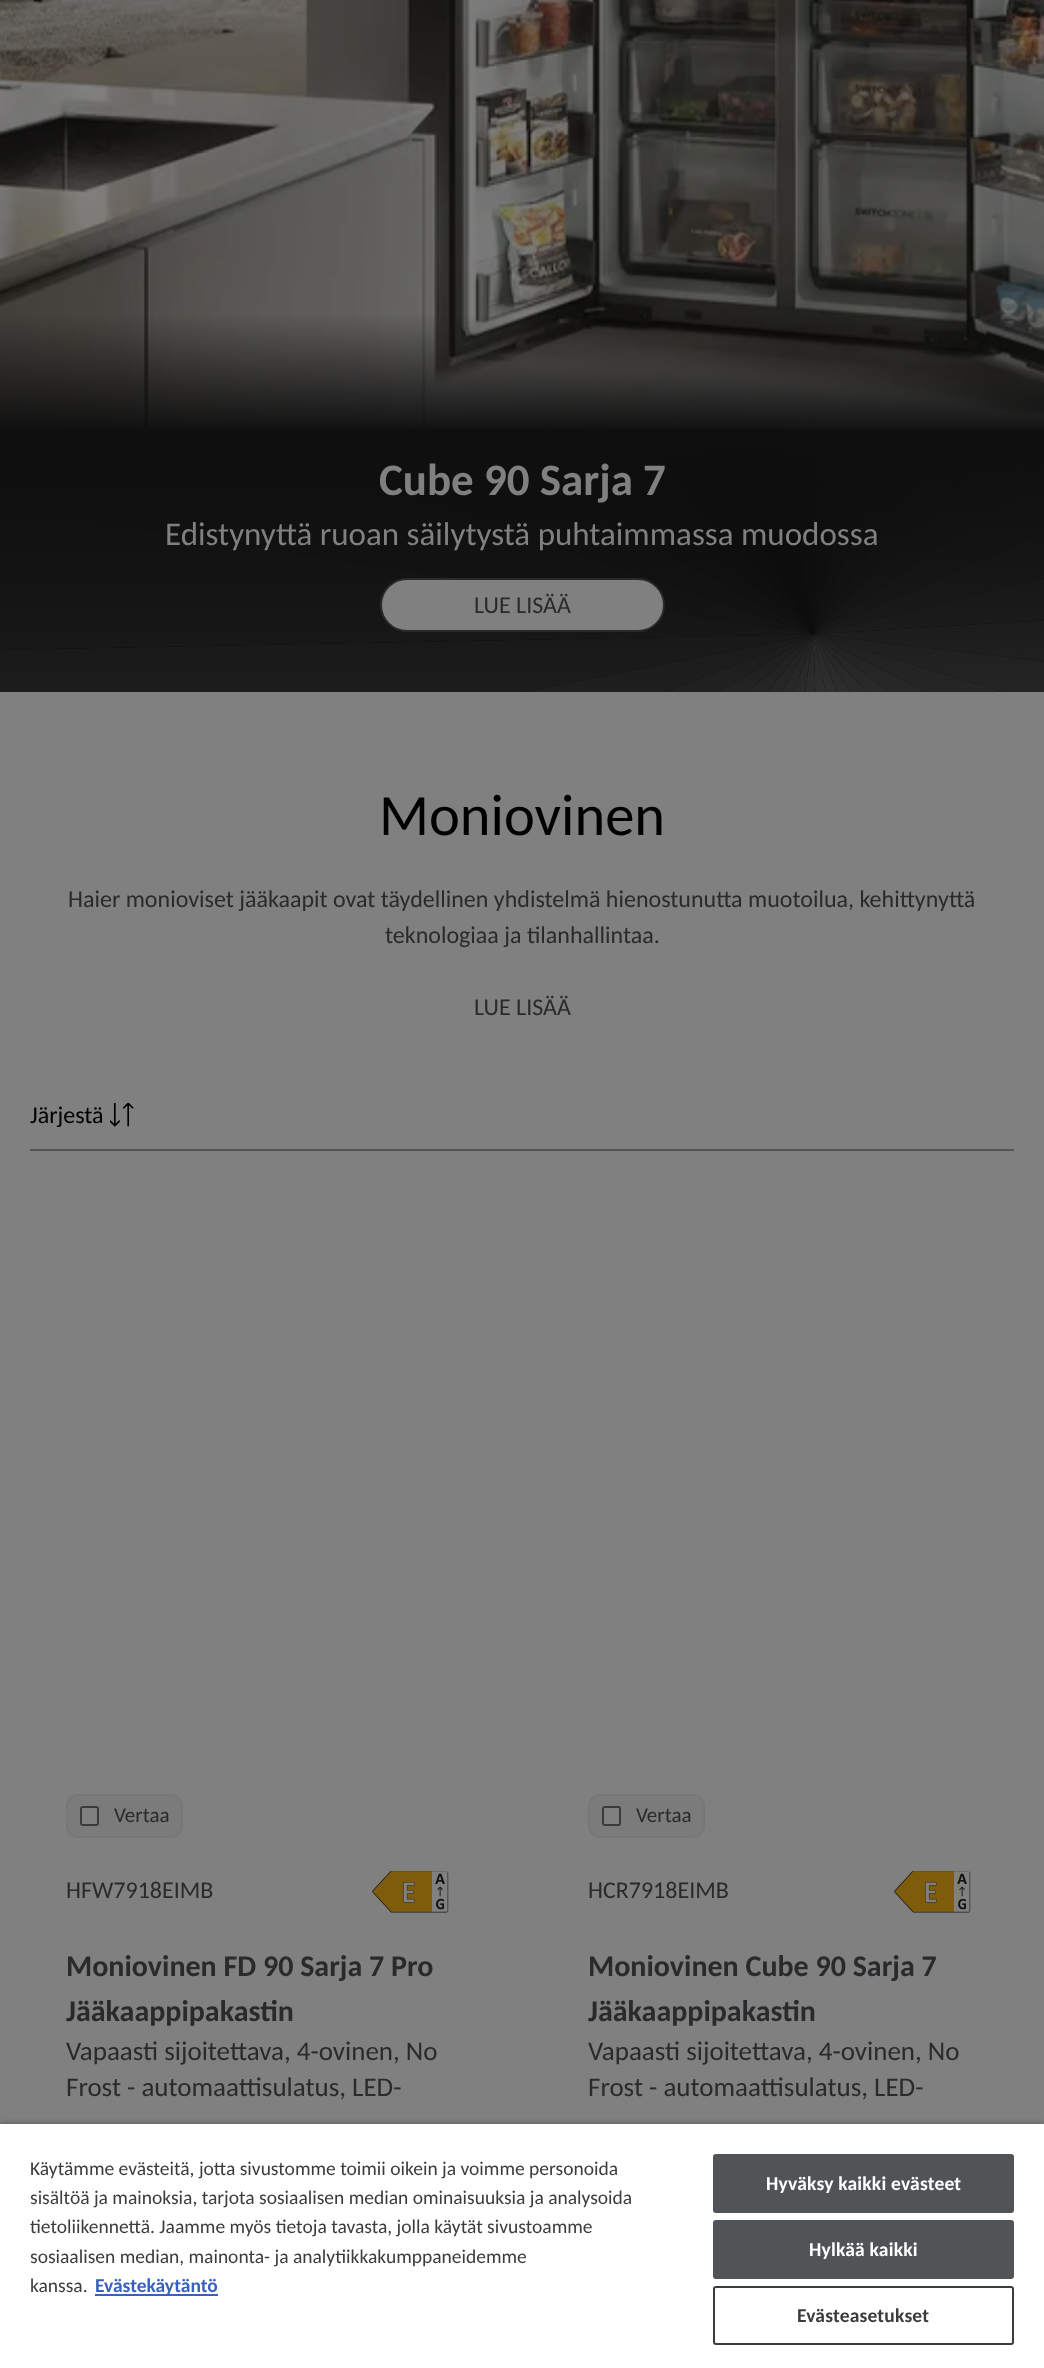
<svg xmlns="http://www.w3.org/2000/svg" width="1044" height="2368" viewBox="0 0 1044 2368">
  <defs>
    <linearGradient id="g1" gradientUnits="userSpaceOnUse" x1="522" y1="313" x2="522" y2="434"><stop offset="0" stop-color="rgb(15,15,15)" stop-opacity="0"/><stop offset="1" stop-color="rgb(15,15,15)"/></linearGradient>
    <linearGradient id="g2" gradientUnits="userSpaceOnUse" x1="522" y1="429" x2="522" y2="692"><stop offset="0" stop-color="rgb(15,15,15)"/><stop offset="1" stop-color="rgb(0,0,0)" stop-opacity="0.5"/></linearGradient>
  </defs>
  <rect width="100%" height="100%" fill="rgb(128,128,128)"/>
  <image x="0" y="0" width="1044" height="433" href="pic1.png"/>
  <rect x="0" y="434" width="1044" height="258" fill="rgb(0,0,0)"/>
  <rect x="0" y="316" width="1044" height="113" fill="url(#g1)"/>
  <image x="0" y="434" width="1044" height="258" href="pic2.png"/>
  <rect x="0" y="429" width="1044" height="263" fill="url(#g2)"/>
  <text x="379" y="495" font-family="Carlito" font-size="45" font-weight="bold" fill="rgb(128,128,128)">Cube 90 Sarja 7</text>
  <text x="165" y="545" font-family="Carlito" font-size="33" fill="rgb(128,128,128)">Edistynyttä ruoan säilytystä puhtaimmassa muodossa</text>
  <rect x="381" y="579" width="283" height="52" rx="26" fill="rgb(128,128,128)" stroke="rgb(40,42,43)" stroke-width="2"/>
  <text x="474" y="613" font-family="Carlito" font-size="24" fill="rgb(40,42,43)">LUE LISÄÄ</text>
  <text x="379" y="835" font-family="Carlito" font-size="58.5" fill="rgb(0,0,0)">Moniovinen</text>
  <g font-family="Carlito" font-size="24" fill="rgb(40,42,43)">
    <text x="68" y="907">Haier monioviset jääkaapit ovat täydellinen yhdistelmä hienostunutta muotoilua, kehittynyttä</text>
    <text x="385" y="943">teknologiaa ja tilanhallintaa.</text>
    <text x="474" y="1015">LUE LISÄÄ</text>
  </g>
  <rect x="30" y="1149" width="984" height="2" fill="rgb(84,85,86)"/>
  <text x="30" y="1123" font-family="Carlito" font-size="24" fill="rgb(0,0,0)">Järjestä</text>
  <image x="110" y="1103" width="24" height="24" href="pic3.png"/>
  <rect x="67" y="1795" width="115" height="42" rx="11" fill="rgb(123,123,123)" stroke="rgb(119,119,119)" stroke-width="2"/>
  <rect x="81" y="1807" width="17" height="18" rx="2" fill="rgb(128,128,128)" stroke="rgb(59,59,59)" stroke-width="2"/>
  <text x="114" y="1822" font-family="Carlito" font-size="21" fill="rgb(40,42,43)">Vertaa</text>
  <text x="66" y="1898" font-family="Carlito" font-size="24" fill="rgb(40,42,43)">HFW7918EIMB</text>
  <image x="372" y="1871" width="77" height="42" href="pic4.png"/>
  <g font-family="Carlito" font-size="30" font-weight="bold" fill="rgb(40,42,43)">
    <text>
      <tspan x="66" y="1976">Moniovinen FD 90 Sarja 7 Pro</tspan>
      <tspan x="66" y="2021">Jääkaappipakastin</tspan>
    </text>
  </g>
  <g font-family="Carlito" font-size="27" fill="rgb(40,42,43)">
    <text>
      <tspan x="66" y="2060">Vapaasti sijoitettava, 4-ovinen, No</tspan>
      <tspan x="66" y="2096">Frost - automaattisulatus, LED-</tspan>
    </text>
  </g>
  <rect x="589" y="1795" width="115" height="42" rx="11" fill="rgb(123,123,123)" stroke="rgb(119,119,119)" stroke-width="2"/>
  <rect x="603" y="1807" width="17" height="18" rx="2" fill="rgb(128,128,128)" stroke="rgb(59,59,59)" stroke-width="2"/>
  <text x="636" y="1822" font-family="Carlito" font-size="21" fill="rgb(40,42,43)">Vertaa</text>
  <text x="588" y="1898" font-family="Carlito" font-size="24" fill="rgb(40,42,43)">HCR7918EIMB</text>
  <image x="894" y="1871" width="77" height="42" href="pic4.png"/>
  <g font-family="Carlito" font-size="30" font-weight="bold" fill="rgb(40,42,43)">
    <text>
      <tspan x="588" y="1976">Moniovinen Cube 90 Sarja 7</tspan>
      <tspan x="588" y="2021">Jääkaappipakastin</tspan>
    </text>
  </g>
  <g font-family="Carlito" font-size="27" fill="rgb(40,42,43)">
    <text>
      <tspan x="588" y="2060">Vapaasti sijoitettava, 4-ovinen, No</tspan>
      <tspan x="588" y="2096">Frost - automaattisulatus, LED-</tspan>
    </text>
  </g>
  <rect x="0" y="2124" width="1044" height="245" fill="rgba(0,0,0,0.35)" filter="blur(3px)"/>
  <rect x="0" y="2124" width="1044" height="244" fill="rgb(255,255,255)"/>
  <g font-family="Carlito" font-size="19.5" fill="rgb(60,60,62)">
    <text>
      <tspan x="30" y="2175">Käytämme evästeitä, jotta sivustomme toimii oikein ja voimme personoida</tspan>
      <tspan x="30" y="2204">sisältöä ja mainoksia, tarjota sosiaalisen median ominaisuuksia ja analysoida</tspan>
      <tspan x="30" y="2233">tietoliikennettä. Jaamme myös tietoja tavasta, jolla käytät sivustoamme</tspan>
      <tspan x="30" y="2263">sosiaalisen median, mainonta- ja analytiikkakumppaneidemme</tspan>
      <tspan x="30" y="2292">kanssa.</tspan>
    </text>
  </g>
  <rect x="95" y="2294" width="123" height="2" fill="rgb(56,96,190)"/>
  <text x="95" y="2292" font-family="Carlito" font-size="19.5" font-weight="bold" fill="rgb(56,96,190)">Evästekäytäntö</text>
  <rect x="714" y="2155" width="299" height="57" rx="2" fill="rgb(80,84,86)" stroke="rgb(80,84,86)" stroke-width="2"/>
  <text x="766" y="2190" font-family="Carlito" font-size="19.5" font-weight="bold" letter-spacing="0.2" fill="rgb(255,255,255)">Hyväksy kaikki evästeet</text>
  <rect x="714" y="2221" width="299" height="57" rx="2" fill="rgb(80,84,86)" stroke="rgb(80,84,86)" stroke-width="2"/>
  <text x="809" y="2256" font-family="Carlito" font-size="19.5" font-weight="bold" letter-spacing="0.2" fill="rgb(255,255,255)">Hylkää kaikki</text>
  <rect x="714" y="2287" width="299" height="57" rx="2" fill="none" stroke="rgb(60,60,62)" stroke-width="2"/>
  <text x="797" y="2322" font-family="Carlito" font-size="19.5" font-weight="bold" letter-spacing="0.2" fill="rgb(60,60,62)">Evästeasetukset</text>
</svg>
